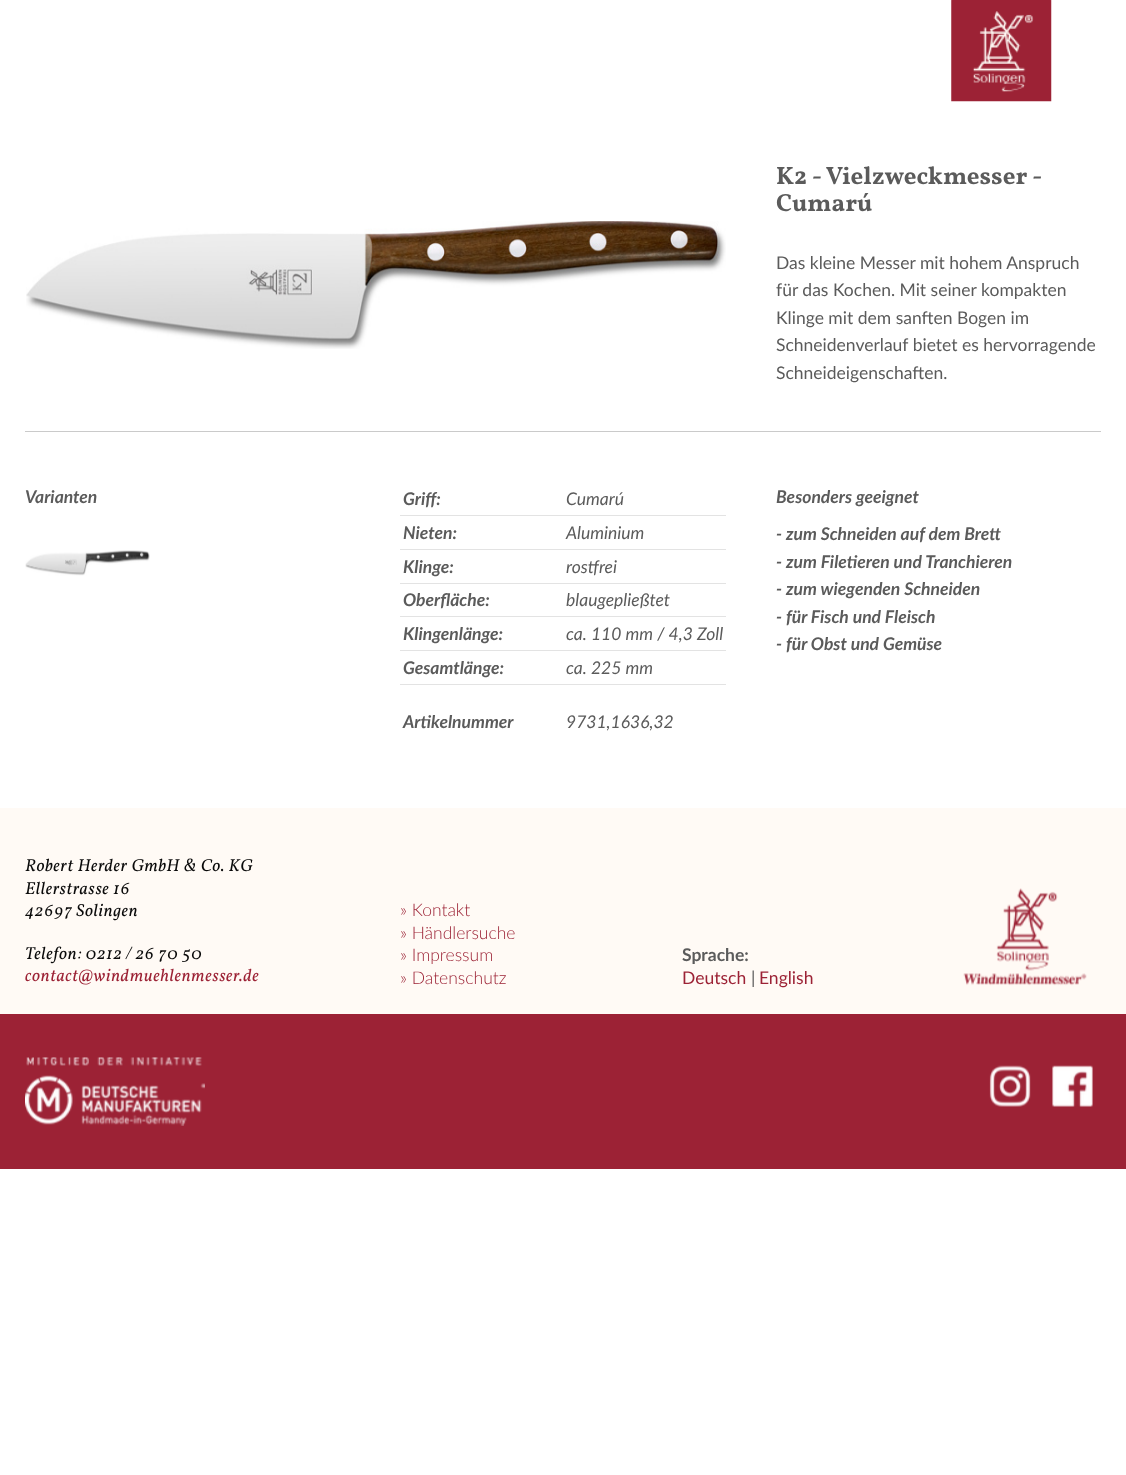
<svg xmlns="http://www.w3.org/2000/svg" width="1126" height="1475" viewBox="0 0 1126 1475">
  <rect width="100%" height="100%" fill="rgb(255,255,255)"/>
  <image x="951" y="0" width="101" height="102" href="pic1.png"/>
  <image x="26" y="221" width="700" height="128" href="pic2.png"/>
  <g font-family="Vollkorn" font-size="25" font-weight="bold" fill="rgb(91,91,91)">
    <text>
      <tspan x="776" y="184">K2 - Vielzweckmesser -</tspan>
      <tspan x="776" y="211">Cumarú</tspan>
    </text>
  </g>
  <g font-family="Lato" font-size="17.5" fill="rgb(91,91,91)">
    <text>
      <tspan x="776" y="269">Das kleine Messer mit hohem Anspruch</tspan>
      <tspan x="776" y="296">für das Kochen. Mit seiner kompakten</tspan>
      <tspan x="776" y="324">Klinge mit dem sanften Bogen im</tspan>
      <tspan x="776" y="351">Schneidenverlauf bietet es hervorragende</tspan>
      <tspan x="776" y="379">Schneideigenschaften.</tspan>
    </text>
  </g>
  <rect x="25" y="431" width="1076" height="1" fill="rgb(202,202,202)"/>
  <text x="25" y="503" font-family="Lato" font-size="17.5" font-weight="bold" font-style="italic" fill="rgb(91,91,91)">Varianten</text>
  <image x="25" y="550" width="125" height="26" href="pic3.png"/>
  <rect x="400" y="515" width="326" height="1" fill="rgb(227,227,227)"/>
  <text x="403" y="505" font-family="Lato" font-size="17.5" font-weight="bold" font-style="italic" fill="rgb(91,91,91)">Griff:</text>
  <text x="566" y="505" font-family="Lato" font-size="17.5" font-style="italic" fill="rgb(91,91,91)">Cumarú</text>
  <rect x="400" y="549" width="326" height="1" fill="rgb(227,227,227)"/>
  <text x="403" y="539" font-family="Lato" font-size="17.5" font-weight="bold" font-style="italic" fill="rgb(91,91,91)">Nieten:</text>
  <text x="566" y="539" font-family="Lato" font-size="17.5" font-style="italic" fill="rgb(91,91,91)">Aluminium</text>
  <rect x="400" y="583" width="326" height="1" fill="rgb(227,227,227)"/>
  <text x="403" y="573" font-family="Lato" font-size="17.5" font-weight="bold" font-style="italic" fill="rgb(91,91,91)">Klinge:</text>
  <text x="566" y="573" font-family="Lato" font-size="17.5" font-style="italic" fill="rgb(91,91,91)">rostfrei</text>
  <rect x="400" y="616" width="326" height="1" fill="rgb(227,227,227)"/>
  <text x="403" y="606" font-family="Lato" font-size="17.5" font-weight="bold" font-style="italic" fill="rgb(91,91,91)">Oberfläche:</text>
  <text x="566" y="606" font-family="Lato" font-size="17.5" font-style="italic" fill="rgb(91,91,91)">blaugepließtet</text>
  <rect x="400" y="650" width="326" height="1" fill="rgb(227,227,227)"/>
  <text x="403" y="640" font-family="Lato" font-size="17.5" font-weight="bold" font-style="italic" fill="rgb(91,91,91)">Klingenlänge:</text>
  <text x="566" y="640" font-family="Lato" font-size="17.5" font-style="italic" fill="rgb(91,91,91)">ca. 110 mm / 4,3 Zoll</text>
  <rect x="400" y="684" width="326" height="1" fill="rgb(227,227,227)"/>
  <text x="403" y="674" font-family="Lato" font-size="17.5" font-weight="bold" font-style="italic" fill="rgb(91,91,91)">Gesamtlänge:</text>
  <text x="566" y="674" font-family="Lato" font-size="17.5" font-style="italic" fill="rgb(91,91,91)">ca. 225 mm</text>
  <text x="403" y="728" font-family="Lato" font-size="17.5" font-weight="bold" font-style="italic" fill="rgb(91,91,91)">Artikelnummer</text>
  <text x="566" y="728" font-family="Lato" font-size="17.5" font-style="italic" fill="rgb(91,91,91)">9731,1636,32</text>
  <g font-family="Lato" font-size="17.5" font-weight="bold" font-style="italic" fill="rgb(91,91,91)">
    <text x="776" y="503">Besonders geeignet</text>
    <text>
      <tspan x="776" y="540">- zum Schneiden auf dem Brett</tspan>
      <tspan x="776" y="568">- zum Filetieren und Tranchieren</tspan>
      <tspan x="776" y="595">- zum wiegenden Schneiden</tspan>
      <tspan x="776" y="623">- für Fisch und Fleisch</tspan>
      <tspan x="776" y="650">- für Obst und Gemüse</tspan>
    </text>
  </g>
  <rect x="0" y="808" width="1126" height="206" fill="rgb(255,250,245)"/>
  <g font-family="Vollkorn" font-size="17.5" font-style="italic" letter-spacing="0.6" fill="rgb(10,10,10)">
    <text>
      <tspan x="25" y="871">Robert Herder GmbH &amp; Co. KG</tspan>
      <tspan x="25" y="894">Ellerstrasse 16</tspan>
      <tspan x="25" y="916">42697 Solingen</tspan>
    </text>
    <text x="25" y="959">Telefon: 0212 / 26 70 50</text>
  </g>
  <text x="25" y="981" font-family="Vollkorn" font-size="17.5" font-style="italic" letter-spacing="0.6" fill="rgb(156,34,53)">contact@windmuehlenmesser.de</text>
  <g font-family="Lato" font-size="17.5" font-weight="300" fill="rgb(156,34,53)">
    <text>
      <tspan x="400" y="916">» Kontakt</tspan>
      <tspan x="400" y="939">» Händlersuche</tspan>
      <tspan x="400" y="961">» Impressum</tspan>
      <tspan x="400" y="984">» Datenschutz</tspan>
    </text>
  </g>
  <text x="682" y="961" font-family="Lato" font-size="17.5" font-weight="bold" fill="rgb(91,91,91)">Sprache:</text>
  <text x="682" y="984" font-family="Lato" font-size="17.5" fill="rgb(156,34,53)">Deutsch</text>
  <text x="751" y="984" font-family="Lato" font-size="17.5" fill="rgb(91,91,91)">|</text>
  <text x="759" y="984" font-family="Lato" font-size="17.5" fill="rgb(156,34,53)">English</text>
  <image x="963" y="888" width="124" height="98" href="pic4.png"/>
  <rect x="0" y="1014" width="1126" height="155" fill="rgb(156,34,53)"/>
  <image x="25" y="1057" width="180" height="69" href="pic5.png"/>
  <image x="989" y="1065" width="42" height="42" href="pic6.png"/>
  <image x="1052" y="1065" width="41" height="42" href="pic7.png"/>
</svg>
